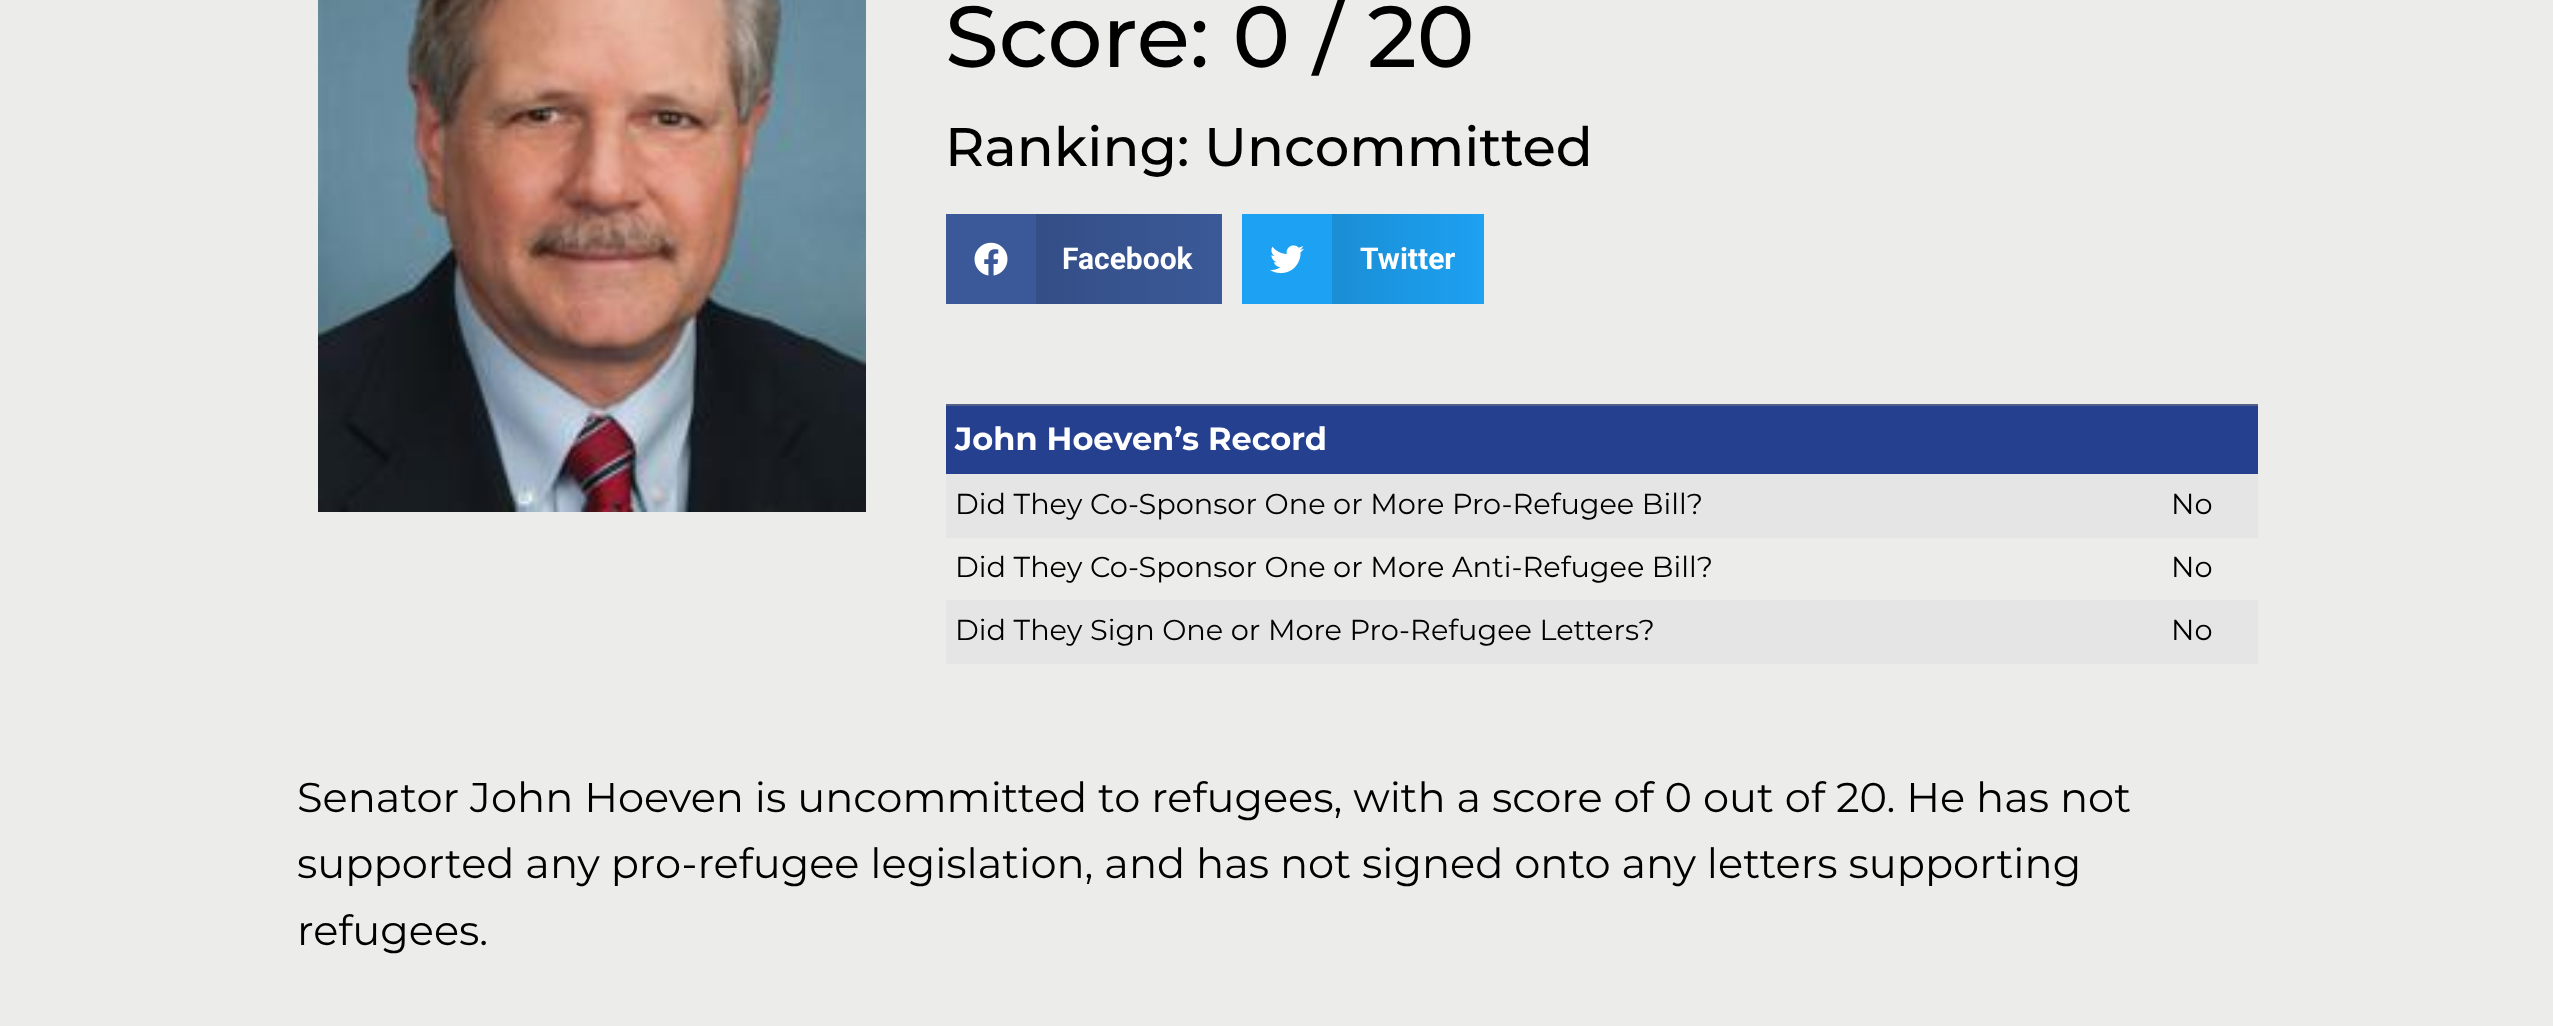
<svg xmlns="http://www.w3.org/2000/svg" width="2553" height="1026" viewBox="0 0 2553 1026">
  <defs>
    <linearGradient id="g1" gradientUnits="userSpaceOnUse" x1="1036" y1="259" x2="1222" y2="259"><stop offset="0" stop-color="rgb(52,78,134)"/><stop offset="1" stop-color="rgb(59,89,152)"/></linearGradient>
    <linearGradient id="g2" gradientUnits="userSpaceOnUse" x1="1332" y1="259" x2="1484" y2="259"><stop offset="0" stop-color="rgb(26,142,213)"/><stop offset="1" stop-color="rgb(29,161,242)"/></linearGradient>
  </defs>
  <rect width="100%" height="100%" fill="rgb(236,237,235)"/>
  <image x="318" y="0" width="548" height="512" href="pic1.png"/>
  <text x="945" y="67" font-family="Montserrat" font-size="86.5" font-weight="500" fill="rgb(0,0,0)">Score: 0 / 20</text>
  <text x="945" y="166" font-family="Montserrat" font-size="54.4" font-weight="500" fill="rgb(0,0,0)">Ranking: Uncommitted</text>
  <rect x="946" y="214" width="90" height="90" fill="rgb(59,89,152)"/>
  <image x="974" y="242" width="34" height="34" href="pic2.png"/>
  <rect x="1036" y="214" width="186" height="90" fill="url(#g1)"/>
  <text x="1062" y="269" font-family="Roboto" font-size="30" font-weight="bold" fill="rgb(255,255,255)">Facebook</text>
  <rect x="1242" y="214" width="90" height="90" fill="rgb(29,161,242)"/>
  <image x="1270" y="245" width="34" height="29" href="pic3.png"/>
  <rect x="1332" y="214" width="152" height="90" fill="url(#g2)"/>
  <text x="1360" y="269" font-family="Roboto" font-size="30" font-weight="bold" fill="rgb(255,255,255)">Twitter</text>
  <rect x="946" y="406" width="1312" height="68" fill="rgb(37,64,143)"/>
  <rect x="946" y="404" width="1312" height="2" fill="rgb(83,96,136)"/>
  <text x="955" y="450" font-family="Montserrat" font-size="32" font-weight="bold" fill="rgb(255,255,255)">John Hoeven’s Record</text>
  <rect x="946" y="474" width="1312" height="64" fill="rgb(228,229,228)"/>
  <g font-family="Montserrat" font-size="28.8" fill="rgb(0,0,0)">
    <text x="955" y="514">Did They Co-Sponsor One or More Pro-Refugee Bill?</text>
    <text x="2171" y="514">No</text>
    <text x="955" y="577">Did They Co-Sponsor One or More Anti-Refugee Bill?</text>
    <text x="2171" y="577">No</text>
  </g>
  <rect x="946" y="600" width="1312" height="64" fill="rgb(228,229,228)"/>
  <g font-family="Montserrat" font-size="28.8" fill="rgb(0,0,0)">
    <text x="955" y="640">Did They Sign One or More Pro-Refugee Letters?</text>
    <text x="2171" y="640">No</text>
  </g>
  <g font-family="Montserrat" font-size="41.6" fill="rgb(0,0,0)">
    <text>
      <tspan x="297" y="812">Senator John Hoeven is uncommitted to refugees, with a score of 0 out of 20. He has not</tspan>
      <tspan x="297" y="878">supported any pro-refugee legislation, and has not signed onto any letters supporting</tspan>
      <tspan x="297" y="945">refugees.</tspan>
    </text>
  </g>
</svg>
